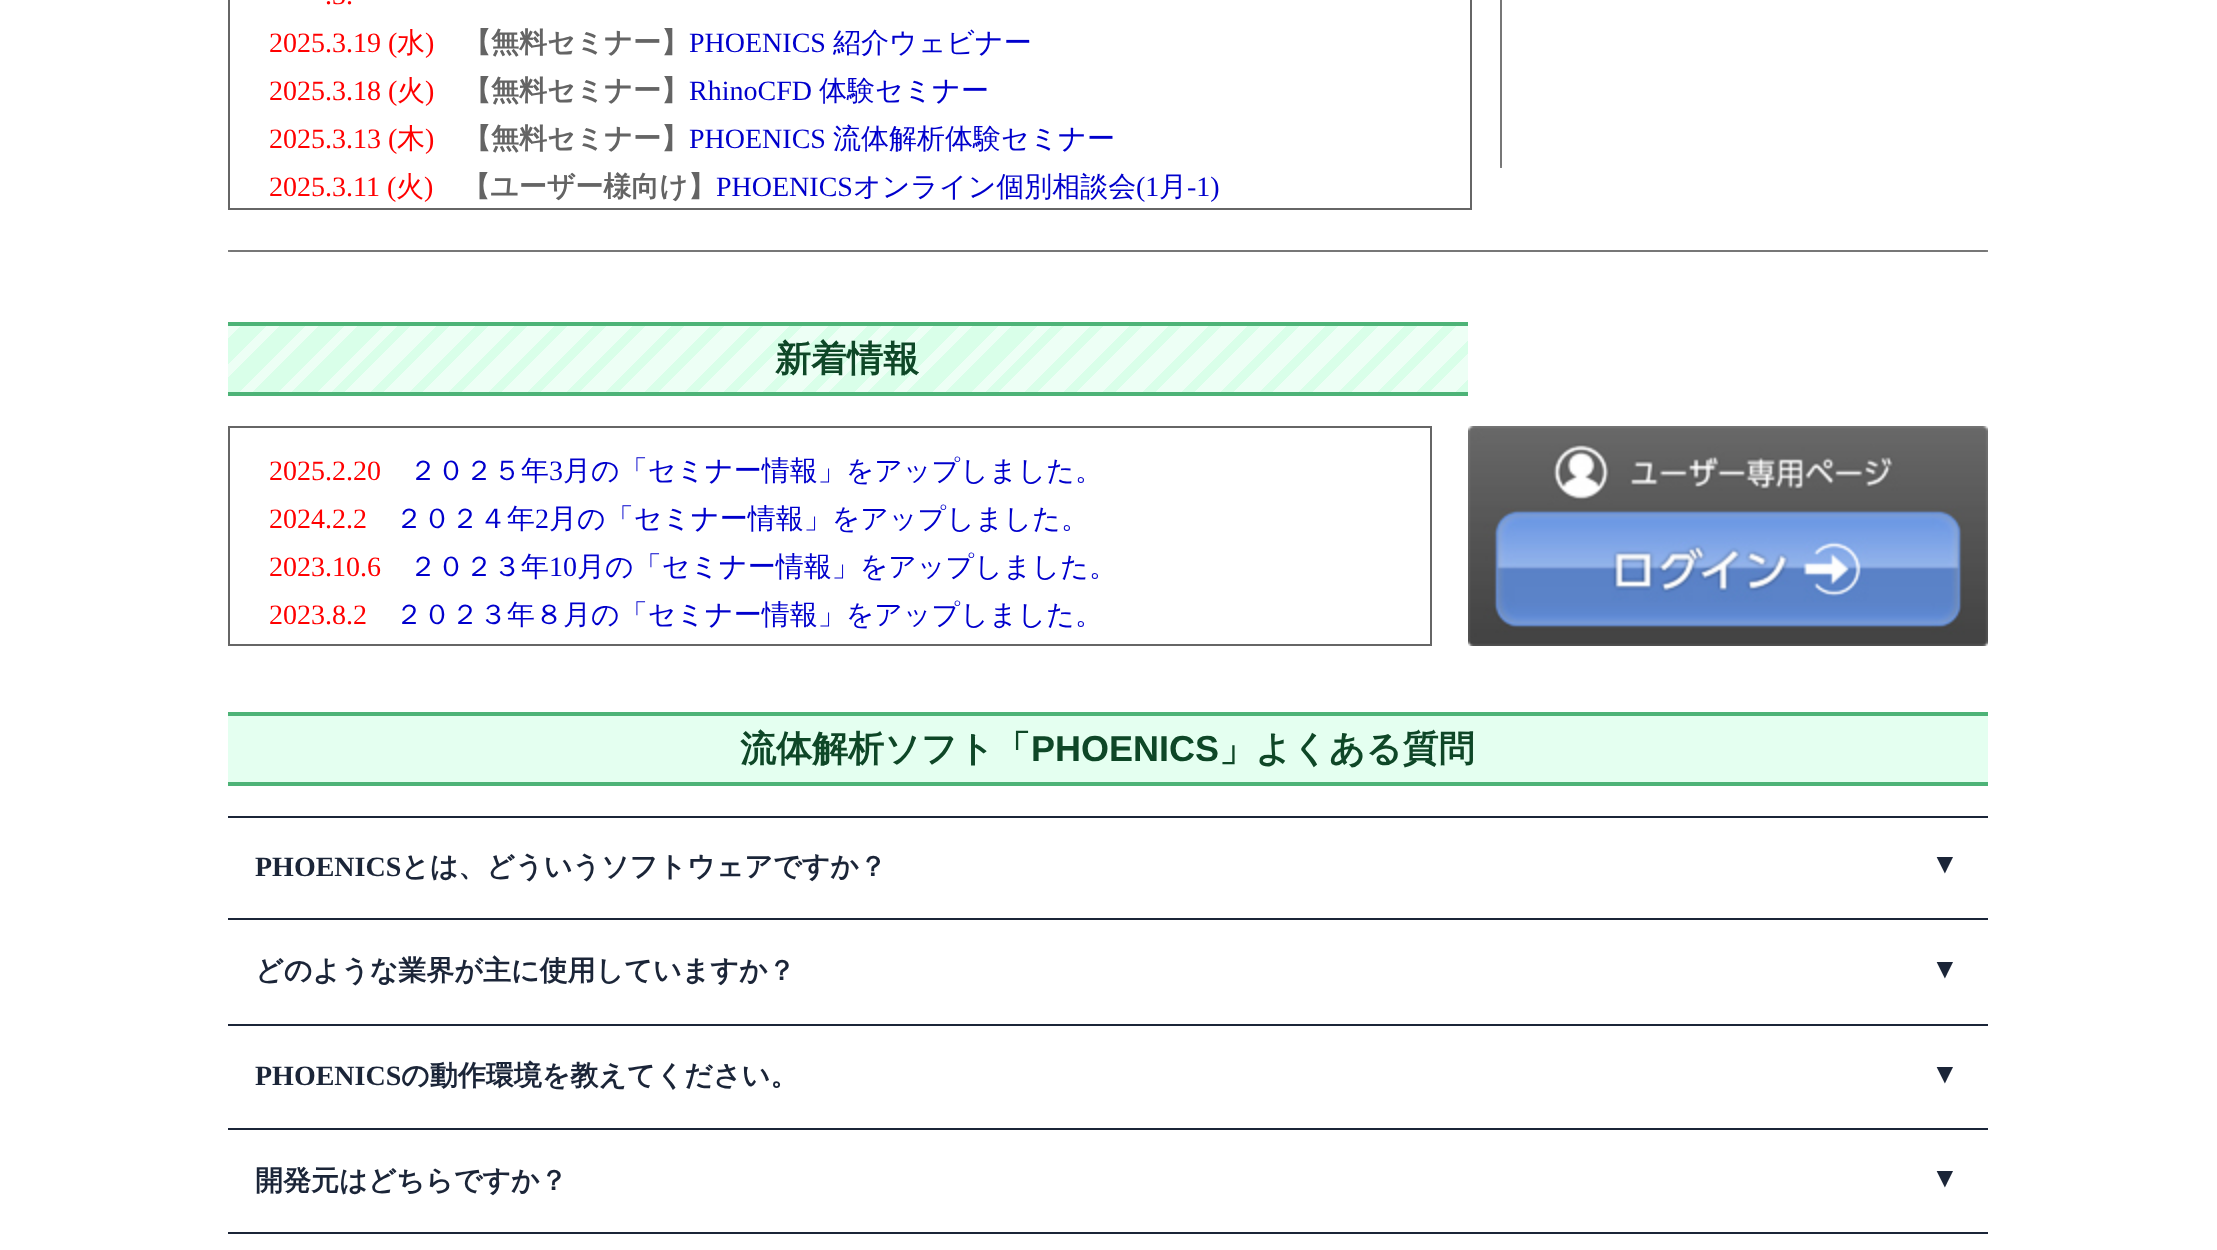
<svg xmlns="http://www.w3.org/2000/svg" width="2217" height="1250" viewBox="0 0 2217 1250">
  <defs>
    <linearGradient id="g1" gradientUnits="userSpaceOnUse" x1="1175" y1="686" x2="521" y2="32"><stop offset="0" stop-color="rgb(217,255,233)"/><stop offset="0.01" stop-color="rgb(217,255,233)"/><stop offset="0.01" stop-color="rgb(237,255,245)"/><stop offset="0.02" stop-color="rgb(237,255,245)"/><stop offset="0.02" stop-color="rgb(217,255,233)"/><stop offset="0.02" stop-color="rgb(217,255,233)"/><stop offset="0.02" stop-color="rgb(237,255,245)"/><stop offset="0.03" stop-color="rgb(237,255,245)"/><stop offset="0.03" stop-color="rgb(217,255,233)"/><stop offset="0.04" stop-color="rgb(217,255,233)"/><stop offset="0.04" stop-color="rgb(237,255,245)"/><stop offset="0.05" stop-color="rgb(237,255,245)"/><stop offset="0.05" stop-color="rgb(217,255,233)"/><stop offset="0.05" stop-color="rgb(217,255,233)"/><stop offset="0.05" stop-color="rgb(237,255,245)"/><stop offset="0.06" stop-color="rgb(237,255,245)"/><stop offset="0.06" stop-color="rgb(217,255,233)"/><stop offset="0.07" stop-color="rgb(217,255,233)"/><stop offset="0.07" stop-color="rgb(237,255,245)"/><stop offset="0.08" stop-color="rgb(237,255,245)"/><stop offset="0.08" stop-color="rgb(217,255,233)"/><stop offset="0.08" stop-color="rgb(217,255,233)"/><stop offset="0.08" stop-color="rgb(237,255,245)"/><stop offset="0.09" stop-color="rgb(237,255,245)"/><stop offset="0.09" stop-color="rgb(217,255,233)"/><stop offset="0.1" stop-color="rgb(217,255,233)"/><stop offset="0.1" stop-color="rgb(237,255,245)"/><stop offset="0.11" stop-color="rgb(237,255,245)"/><stop offset="0.11" stop-color="rgb(217,255,233)"/><stop offset="0.11" stop-color="rgb(217,255,233)"/><stop offset="0.11" stop-color="rgb(237,255,245)"/><stop offset="0.12" stop-color="rgb(237,255,245)"/><stop offset="0.12" stop-color="rgb(217,255,233)"/><stop offset="0.13" stop-color="rgb(217,255,233)"/><stop offset="0.13" stop-color="rgb(237,255,245)"/><stop offset="0.14" stop-color="rgb(237,255,245)"/><stop offset="0.14" stop-color="rgb(217,255,233)"/><stop offset="0.14" stop-color="rgb(217,255,233)"/><stop offset="0.14" stop-color="rgb(237,255,245)"/><stop offset="0.15" stop-color="rgb(237,255,245)"/><stop offset="0.15" stop-color="rgb(217,255,233)"/><stop offset="0.16" stop-color="rgb(217,255,233)"/><stop offset="0.16" stop-color="rgb(237,255,245)"/><stop offset="0.17" stop-color="rgb(237,255,245)"/><stop offset="0.17" stop-color="rgb(217,255,233)"/><stop offset="0.17" stop-color="rgb(217,255,233)"/><stop offset="0.17" stop-color="rgb(237,255,245)"/><stop offset="0.18" stop-color="rgb(237,255,245)"/><stop offset="0.18" stop-color="rgb(217,255,233)"/><stop offset="0.19" stop-color="rgb(217,255,233)"/><stop offset="0.19" stop-color="rgb(237,255,245)"/><stop offset="0.2" stop-color="rgb(237,255,245)"/><stop offset="0.2" stop-color="rgb(217,255,233)"/><stop offset="0.2" stop-color="rgb(217,255,233)"/><stop offset="0.2" stop-color="rgb(237,255,245)"/><stop offset="0.21" stop-color="rgb(237,255,245)"/><stop offset="0.21" stop-color="rgb(217,255,233)"/><stop offset="0.22" stop-color="rgb(217,255,233)"/><stop offset="0.22" stop-color="rgb(237,255,245)"/><stop offset="0.23" stop-color="rgb(237,255,245)"/><stop offset="0.23" stop-color="rgb(217,255,233)"/><stop offset="0.23" stop-color="rgb(217,255,233)"/><stop offset="0.23" stop-color="rgb(237,255,245)"/><stop offset="0.24" stop-color="rgb(237,255,245)"/><stop offset="0.24" stop-color="rgb(217,255,233)"/><stop offset="0.25" stop-color="rgb(217,255,233)"/><stop offset="0.25" stop-color="rgb(237,255,245)"/><stop offset="0.26" stop-color="rgb(237,255,245)"/><stop offset="0.26" stop-color="rgb(217,255,233)"/><stop offset="0.26" stop-color="rgb(217,255,233)"/><stop offset="0.26" stop-color="rgb(237,255,245)"/><stop offset="0.27" stop-color="rgb(237,255,245)"/><stop offset="0.27" stop-color="rgb(217,255,233)"/><stop offset="0.28" stop-color="rgb(217,255,233)"/><stop offset="0.28" stop-color="rgb(237,255,245)"/><stop offset="0.29" stop-color="rgb(237,255,245)"/><stop offset="0.29" stop-color="rgb(217,255,233)"/><stop offset="0.29" stop-color="rgb(217,255,233)"/><stop offset="0.29" stop-color="rgb(237,255,245)"/><stop offset="0.3" stop-color="rgb(237,255,245)"/><stop offset="0.3" stop-color="rgb(217,255,233)"/><stop offset="0.31" stop-color="rgb(217,255,233)"/><stop offset="0.31" stop-color="rgb(237,255,245)"/><stop offset="0.32" stop-color="rgb(237,255,245)"/><stop offset="0.32" stop-color="rgb(217,255,233)"/><stop offset="0.32" stop-color="rgb(217,255,233)"/><stop offset="0.32" stop-color="rgb(237,255,245)"/><stop offset="0.33" stop-color="rgb(237,255,245)"/><stop offset="0.33" stop-color="rgb(217,255,233)"/><stop offset="0.34" stop-color="rgb(217,255,233)"/><stop offset="0.34" stop-color="rgb(237,255,245)"/><stop offset="0.35" stop-color="rgb(237,255,245)"/><stop offset="0.35" stop-color="rgb(217,255,233)"/><stop offset="0.35" stop-color="rgb(217,255,233)"/><stop offset="0.35" stop-color="rgb(237,255,245)"/><stop offset="0.36" stop-color="rgb(237,255,245)"/><stop offset="0.36" stop-color="rgb(217,255,233)"/><stop offset="0.37" stop-color="rgb(217,255,233)"/><stop offset="0.37" stop-color="rgb(237,255,245)"/><stop offset="0.38" stop-color="rgb(237,255,245)"/><stop offset="0.38" stop-color="rgb(217,255,233)"/><stop offset="0.39" stop-color="rgb(217,255,233)"/><stop offset="0.39" stop-color="rgb(237,255,245)"/><stop offset="0.39" stop-color="rgb(237,255,245)"/><stop offset="0.39" stop-color="rgb(217,255,233)"/><stop offset="0.4" stop-color="rgb(217,255,233)"/><stop offset="0.4" stop-color="rgb(237,255,245)"/><stop offset="0.41" stop-color="rgb(237,255,245)"/><stop offset="0.41" stop-color="rgb(217,255,233)"/><stop offset="0.42" stop-color="rgb(217,255,233)"/><stop offset="0.42" stop-color="rgb(237,255,245)"/><stop offset="0.42" stop-color="rgb(237,255,245)"/><stop offset="0.42" stop-color="rgb(217,255,233)"/><stop offset="0.43" stop-color="rgb(217,255,233)"/><stop offset="0.43" stop-color="rgb(237,255,245)"/><stop offset="0.44" stop-color="rgb(237,255,245)"/><stop offset="0.44" stop-color="rgb(217,255,233)"/><stop offset="0.45" stop-color="rgb(217,255,233)"/><stop offset="0.45" stop-color="rgb(237,255,245)"/><stop offset="0.45" stop-color="rgb(237,255,245)"/><stop offset="0.45" stop-color="rgb(217,255,233)"/><stop offset="0.46" stop-color="rgb(217,255,233)"/><stop offset="0.46" stop-color="rgb(237,255,245)"/><stop offset="0.47" stop-color="rgb(237,255,245)"/><stop offset="0.47" stop-color="rgb(217,255,233)"/><stop offset="0.48" stop-color="rgb(217,255,233)"/><stop offset="0.48" stop-color="rgb(237,255,245)"/><stop offset="0.48" stop-color="rgb(237,255,245)"/><stop offset="0.48" stop-color="rgb(217,255,233)"/><stop offset="0.49" stop-color="rgb(217,255,233)"/><stop offset="0.49" stop-color="rgb(237,255,245)"/><stop offset="0.5" stop-color="rgb(237,255,245)"/><stop offset="0.5" stop-color="rgb(217,255,233)"/><stop offset="0.51" stop-color="rgb(217,255,233)"/><stop offset="0.51" stop-color="rgb(237,255,245)"/><stop offset="0.52" stop-color="rgb(237,255,245)"/><stop offset="0.52" stop-color="rgb(217,255,233)"/><stop offset="0.52" stop-color="rgb(217,255,233)"/><stop offset="0.52" stop-color="rgb(237,255,245)"/><stop offset="0.53" stop-color="rgb(237,255,245)"/><stop offset="0.53" stop-color="rgb(217,255,233)"/><stop offset="0.54" stop-color="rgb(217,255,233)"/><stop offset="0.54" stop-color="rgb(237,255,245)"/><stop offset="0.55" stop-color="rgb(237,255,245)"/><stop offset="0.55" stop-color="rgb(217,255,233)"/><stop offset="0.55" stop-color="rgb(217,255,233)"/><stop offset="0.55" stop-color="rgb(237,255,245)"/><stop offset="0.56" stop-color="rgb(237,255,245)"/><stop offset="0.56" stop-color="rgb(217,255,233)"/><stop offset="0.57" stop-color="rgb(217,255,233)"/><stop offset="0.57" stop-color="rgb(237,255,245)"/><stop offset="0.58" stop-color="rgb(237,255,245)"/><stop offset="0.58" stop-color="rgb(217,255,233)"/><stop offset="0.58" stop-color="rgb(217,255,233)"/><stop offset="0.58" stop-color="rgb(237,255,245)"/><stop offset="0.59" stop-color="rgb(237,255,245)"/><stop offset="0.59" stop-color="rgb(217,255,233)"/><stop offset="0.6" stop-color="rgb(217,255,233)"/><stop offset="0.6" stop-color="rgb(237,255,245)"/><stop offset="0.61" stop-color="rgb(237,255,245)"/><stop offset="0.61" stop-color="rgb(217,255,233)"/><stop offset="0.61" stop-color="rgb(217,255,233)"/><stop offset="0.61" stop-color="rgb(237,255,245)"/><stop offset="0.62" stop-color="rgb(237,255,245)"/><stop offset="0.62" stop-color="rgb(217,255,233)"/><stop offset="0.63" stop-color="rgb(217,255,233)"/><stop offset="0.63" stop-color="rgb(237,255,245)"/><stop offset="0.64" stop-color="rgb(237,255,245)"/><stop offset="0.64" stop-color="rgb(217,255,233)"/><stop offset="0.64" stop-color="rgb(217,255,233)"/><stop offset="0.64" stop-color="rgb(237,255,245)"/><stop offset="0.65" stop-color="rgb(237,255,245)"/><stop offset="0.65" stop-color="rgb(217,255,233)"/><stop offset="0.66" stop-color="rgb(217,255,233)"/><stop offset="0.66" stop-color="rgb(237,255,245)"/><stop offset="0.67" stop-color="rgb(237,255,245)"/><stop offset="0.67" stop-color="rgb(217,255,233)"/><stop offset="0.67" stop-color="rgb(217,255,233)"/><stop offset="0.67" stop-color="rgb(237,255,245)"/><stop offset="0.68" stop-color="rgb(237,255,245)"/><stop offset="0.68" stop-color="rgb(217,255,233)"/><stop offset="0.69" stop-color="rgb(217,255,233)"/><stop offset="0.69" stop-color="rgb(237,255,245)"/><stop offset="0.7" stop-color="rgb(237,255,245)"/><stop offset="0.7" stop-color="rgb(217,255,233)"/><stop offset="0.7" stop-color="rgb(217,255,233)"/><stop offset="0.7" stop-color="rgb(237,255,245)"/><stop offset="0.71" stop-color="rgb(237,255,245)"/><stop offset="0.71" stop-color="rgb(217,255,233)"/><stop offset="0.72" stop-color="rgb(217,255,233)"/><stop offset="0.72" stop-color="rgb(237,255,245)"/><stop offset="0.73" stop-color="rgb(237,255,245)"/><stop offset="0.73" stop-color="rgb(217,255,233)"/><stop offset="0.73" stop-color="rgb(217,255,233)"/><stop offset="0.73" stop-color="rgb(237,255,245)"/><stop offset="0.74" stop-color="rgb(237,255,245)"/><stop offset="0.74" stop-color="rgb(217,255,233)"/><stop offset="0.75" stop-color="rgb(217,255,233)"/><stop offset="0.75" stop-color="rgb(237,255,245)"/><stop offset="0.76" stop-color="rgb(237,255,245)"/><stop offset="0.76" stop-color="rgb(217,255,233)"/><stop offset="0.76" stop-color="rgb(217,255,233)"/><stop offset="0.76" stop-color="rgb(237,255,245)"/><stop offset="0.77" stop-color="rgb(237,255,245)"/><stop offset="0.77" stop-color="rgb(217,255,233)"/><stop offset="0.78" stop-color="rgb(217,255,233)"/><stop offset="0.78" stop-color="rgb(237,255,245)"/><stop offset="0.79" stop-color="rgb(237,255,245)"/><stop offset="0.79" stop-color="rgb(217,255,233)"/><stop offset="0.79" stop-color="rgb(217,255,233)"/><stop offset="0.79" stop-color="rgb(237,255,245)"/><stop offset="0.8" stop-color="rgb(237,255,245)"/><stop offset="0.8" stop-color="rgb(217,255,233)"/><stop offset="0.81" stop-color="rgb(217,255,233)"/><stop offset="0.81" stop-color="rgb(237,255,245)"/><stop offset="0.82" stop-color="rgb(237,255,245)"/><stop offset="0.82" stop-color="rgb(217,255,233)"/><stop offset="0.82" stop-color="rgb(217,255,233)"/><stop offset="0.82" stop-color="rgb(237,255,245)"/><stop offset="0.83" stop-color="rgb(237,255,245)"/><stop offset="0.83" stop-color="rgb(217,255,233)"/><stop offset="0.84" stop-color="rgb(217,255,233)"/><stop offset="0.84" stop-color="rgb(237,255,245)"/><stop offset="0.85" stop-color="rgb(237,255,245)"/><stop offset="0.85" stop-color="rgb(217,255,233)"/><stop offset="0.85" stop-color="rgb(217,255,233)"/><stop offset="0.85" stop-color="rgb(237,255,245)"/><stop offset="0.86" stop-color="rgb(237,255,245)"/><stop offset="0.86" stop-color="rgb(217,255,233)"/><stop offset="0.87" stop-color="rgb(217,255,233)"/><stop offset="0.87" stop-color="rgb(237,255,245)"/><stop offset="0.88" stop-color="rgb(237,255,245)"/><stop offset="0.88" stop-color="rgb(217,255,233)"/><stop offset="0.89" stop-color="rgb(217,255,233)"/><stop offset="0.89" stop-color="rgb(237,255,245)"/><stop offset="0.89" stop-color="rgb(237,255,245)"/><stop offset="0.89" stop-color="rgb(217,255,233)"/><stop offset="0.9" stop-color="rgb(217,255,233)"/><stop offset="0.9" stop-color="rgb(237,255,245)"/><stop offset="0.91" stop-color="rgb(237,255,245)"/><stop offset="0.91" stop-color="rgb(217,255,233)"/><stop offset="0.92" stop-color="rgb(217,255,233)"/><stop offset="0.92" stop-color="rgb(237,255,245)"/><stop offset="0.92" stop-color="rgb(237,255,245)"/><stop offset="0.92" stop-color="rgb(217,255,233)"/><stop offset="0.93" stop-color="rgb(217,255,233)"/><stop offset="0.93" stop-color="rgb(237,255,245)"/><stop offset="0.94" stop-color="rgb(237,255,245)"/><stop offset="0.94" stop-color="rgb(217,255,233)"/><stop offset="0.95" stop-color="rgb(217,255,233)"/><stop offset="0.95" stop-color="rgb(237,255,245)"/><stop offset="0.95" stop-color="rgb(237,255,245)"/><stop offset="0.95" stop-color="rgb(217,255,233)"/><stop offset="0.96" stop-color="rgb(217,255,233)"/><stop offset="0.96" stop-color="rgb(237,255,245)"/><stop offset="0.97" stop-color="rgb(237,255,245)"/><stop offset="0.97" stop-color="rgb(217,255,233)"/><stop offset="0.98" stop-color="rgb(217,255,233)"/><stop offset="0.98" stop-color="rgb(237,255,245)"/><stop offset="0.98" stop-color="rgb(237,255,245)"/><stop offset="0.98" stop-color="rgb(217,255,233)"/><stop offset="0.99" stop-color="rgb(217,255,233)"/><stop offset="0.99" stop-color="rgb(237,255,245)"/><stop offset="1" stop-color="rgb(237,255,245)"/></linearGradient>
  </defs>
  <rect width="100%" height="100%" fill="rgb(255,255,255)"/>
  <rect x="229" y="-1" width="1242" height="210" fill="none" stroke="rgb(102,102,102)" stroke-width="2"/>
  <g font-family="Liberation Serif" font-size="28" fill="rgb(255,0,0)">
    <text x="325" y="4">.3.</text>
    <text x="269" y="52">2025.3.19 (</text>
  </g>
  <text x="397" y="52" font-family="WenQuanYi Zen Hei" font-size="28" font-weight="500" fill="rgb(255,0,0)">水</text>
  <text x="425" y="52" font-family="Liberation Serif" font-size="28" fill="rgb(255,0,0)">)</text>
  <text x="463" y="52" font-family="WenQuanYi Zen Hei" font-size="28" font-weight="bold" fill="rgb(100,100,100)">【無料セミナー】</text>
  <text x="689" y="52" font-family="Liberation Serif" font-size="28" fill="rgb(0,0,204)">PHOENICS</text>
  <text x="833" y="52" font-family="WenQuanYi Zen Hei" font-size="28" font-weight="500" fill="rgb(0,0,204)">紹介ウェビナー</text>
  <text x="269" y="100" font-family="Liberation Serif" font-size="28" fill="rgb(255,0,0)">2025.3.18 (</text>
  <text x="397" y="100" font-family="WenQuanYi Zen Hei" font-size="28" font-weight="500" fill="rgb(255,0,0)">火</text>
  <text x="425" y="100" font-family="Liberation Serif" font-size="28" fill="rgb(255,0,0)">)</text>
  <text x="463" y="100" font-family="WenQuanYi Zen Hei" font-size="28" font-weight="bold" fill="rgb(100,100,100)">【無料セミナー】</text>
  <text x="689" y="100" font-family="Liberation Serif" font-size="28" fill="rgb(0,0,204)">RhinoCFD</text>
  <text x="819" y="100" font-family="WenQuanYi Zen Hei" font-size="28" font-weight="500" fill="rgb(0,0,204)">体験セミナー</text>
  <text x="269" y="148" font-family="Liberation Serif" font-size="28" fill="rgb(255,0,0)">2025.3.13 (</text>
  <text x="397" y="148" font-family="WenQuanYi Zen Hei" font-size="28" font-weight="500" fill="rgb(255,0,0)">木</text>
  <text x="425" y="148" font-family="Liberation Serif" font-size="28" fill="rgb(255,0,0)">)</text>
  <text x="463" y="148" font-family="WenQuanYi Zen Hei" font-size="28" font-weight="bold" fill="rgb(100,100,100)">【無料セミナー】</text>
  <text x="689" y="148" font-family="Liberation Serif" font-size="28" fill="rgb(0,0,204)">PHOENICS</text>
  <text x="833" y="148" font-family="WenQuanYi Zen Hei" font-size="28" font-weight="500" fill="rgb(0,0,204)">流体解析体験セミナー</text>
  <text x="269" y="196" font-family="Liberation Serif" font-size="28" fill="rgb(255,0,0)">2025.3.11 (</text>
  <text x="396" y="196" font-family="WenQuanYi Zen Hei" font-size="28" font-weight="500" fill="rgb(255,0,0)">火</text>
  <text x="424" y="196" font-family="Liberation Serif" font-size="28" fill="rgb(255,0,0)">)</text>
  <text x="462" y="196" font-family="WenQuanYi Zen Hei" font-size="28" font-weight="bold" fill="rgb(100,100,100)">【ユーザー様向け】</text>
  <text x="716" y="196" font-family="Liberation Serif" font-size="28" fill="rgb(0,0,204)">PHOENICS</text>
  <text x="853" y="196" font-family="WenQuanYi Zen Hei" font-size="28" font-weight="500" fill="rgb(0,0,204)">オンライン個別相談会</text>
  <text x="1136" y="196" font-family="Liberation Serif" font-size="28" fill="rgb(0,0,204)">(1</text>
  <text x="1159" y="196" font-family="WenQuanYi Zen Hei" font-size="28" font-weight="500" fill="rgb(0,0,204)">月</text>
  <text x="1187" y="196" font-family="Liberation Serif" font-size="28" fill="rgb(0,0,204)">-1)</text>
  <image x="1500" y="0" width="2" height="168" href="pic1.png"/>
  <image x="228" y="250" width="1760" height="2" href="pic2.png"/>
  <rect x="228" y="326" width="1240" height="66" fill="url(#g1)"/>
  <rect x="228" y="322" width="1240" height="4" fill="rgb(77,179,119)"/>
  <rect x="228" y="392" width="1240" height="4" fill="rgb(77,179,119)"/>
  <text x="775" y="371" font-family="WenQuanYi Zen Hei" font-size="36" font-weight="bold" fill="rgb(14,71,39)">新着情報</text>
  <rect x="229" y="427" width="1202" height="218" fill="none" stroke="rgb(102,102,102)" stroke-width="2"/>
  <text x="269" y="480" font-family="Liberation Serif" font-size="28" fill="rgb(255,0,0)">2025.2.20</text>
  <text x="409" y="480" font-family="WenQuanYi Zen Hei" font-size="28" font-weight="500" fill="rgb(0,0,204)">２０２５年</text>
  <text x="549" y="480" font-family="Liberation Serif" font-size="28" fill="rgb(0,0,204)">3</text>
  <text x="563" y="480" font-family="WenQuanYi Zen Hei" font-size="28" font-weight="500" fill="rgb(0,0,204)">月の「セミナー情報」をアップしました。</text>
  <text x="269" y="528" font-family="Liberation Serif" font-size="28" fill="rgb(255,0,0)">2024.2.2</text>
  <text x="395" y="528" font-family="WenQuanYi Zen Hei" font-size="28" font-weight="500" fill="rgb(0,0,204)">２０２４年</text>
  <text x="535" y="528" font-family="Liberation Serif" font-size="28" fill="rgb(0,0,204)">2</text>
  <text x="549" y="528" font-family="WenQuanYi Zen Hei" font-size="28" font-weight="500" fill="rgb(0,0,204)">月の「セミナー情報」をアップしました。</text>
  <text x="269" y="576" font-family="Liberation Serif" font-size="28" fill="rgb(255,0,0)">2023.10.6</text>
  <text x="409" y="576" font-family="WenQuanYi Zen Hei" font-size="28" font-weight="500" fill="rgb(0,0,204)">２０２３年</text>
  <text x="549" y="576" font-family="Liberation Serif" font-size="28" fill="rgb(0,0,204)">10</text>
  <text x="577" y="576" font-family="WenQuanYi Zen Hei" font-size="28" font-weight="500" fill="rgb(0,0,204)">月の「セミナー情報」をアップしました。</text>
  <text x="269" y="624" font-family="Liberation Serif" font-size="28" fill="rgb(255,0,0)">2023.8.2</text>
  <text x="395" y="624" font-family="WenQuanYi Zen Hei" font-size="28" font-weight="500" fill="rgb(0,0,204)">２０２３年８月の「セミナー情報」をアップしました。</text>
  <image x="1468" y="426" width="520" height="220" href="pic3.png"/>
  <rect x="228" y="716" width="1760" height="66" fill="rgb(228,255,240)"/>
  <rect x="228" y="712" width="1760" height="4" fill="rgb(77,179,119)"/>
  <rect x="228" y="782" width="1760" height="4" fill="rgb(77,179,119)"/>
  <text x="740" y="761" font-family="WenQuanYi Zen Hei" font-size="36" font-weight="bold" fill="rgb(14,71,39)">流体解析ソフト「</text>
  <text x="1031" y="761" font-family="Liberation Sans" font-size="36" font-weight="bold" fill="rgb(14,71,39)">PHOENICS</text>
  <text x="1219" y="761" font-family="WenQuanYi Zen Hei" font-size="36" font-weight="bold" fill="rgb(14,71,39)">」よくある質問</text>
  <rect x="228" y="816" width="1760" height="2" fill="rgb(27,37,56)"/>
  <rect x="228" y="918" width="1760" height="2" fill="rgb(27,37,56)"/>
  <text x="255" y="876" font-family="Liberation Serif" font-size="28" font-weight="bold" fill="rgb(27,37,56)">PHOENICS</text>
  <text x="401" y="876" font-family="WenQuanYi Zen Hei" font-size="28" font-weight="bold" fill="rgb(27,37,56)">とは、どういうソフトウェアですか？</text>
  <text x="1931" y="873" font-family="Liberation Serif" font-size="28" font-weight="bold" fill="rgb(27,37,56)">▼</text>
  <rect x="228" y="1024" width="1760" height="2" fill="rgb(27,37,56)"/>
  <text x="255" y="980" font-family="WenQuanYi Zen Hei" font-size="28" font-weight="bold" fill="rgb(27,37,56)">どのような業界が主に使用していますか？</text>
  <text x="1931" y="978" font-family="Liberation Serif" font-size="28" font-weight="bold" fill="rgb(27,37,56)">▼</text>
  <rect x="228" y="1128" width="1760" height="2" fill="rgb(27,37,56)"/>
  <text x="255" y="1085" font-family="Liberation Serif" font-size="28" font-weight="bold" fill="rgb(27,37,56)">PHOENICS</text>
  <text x="401" y="1085" font-family="WenQuanYi Zen Hei" font-size="28" font-weight="bold" fill="rgb(27,37,56)">の動作環境を教えてください。</text>
  <text x="1931" y="1083" font-family="Liberation Serif" font-size="28" font-weight="bold" fill="rgb(27,37,56)">▼</text>
  <rect x="228" y="1232" width="1760" height="2" fill="rgb(27,37,56)"/>
  <text x="255" y="1190" font-family="WenQuanYi Zen Hei" font-size="28" font-weight="bold" fill="rgb(27,37,56)">開発元はどちらですか？</text>
  <text x="1931" y="1187" font-family="Liberation Serif" font-size="28" font-weight="bold" fill="rgb(27,37,56)">▼</text>
</svg>
